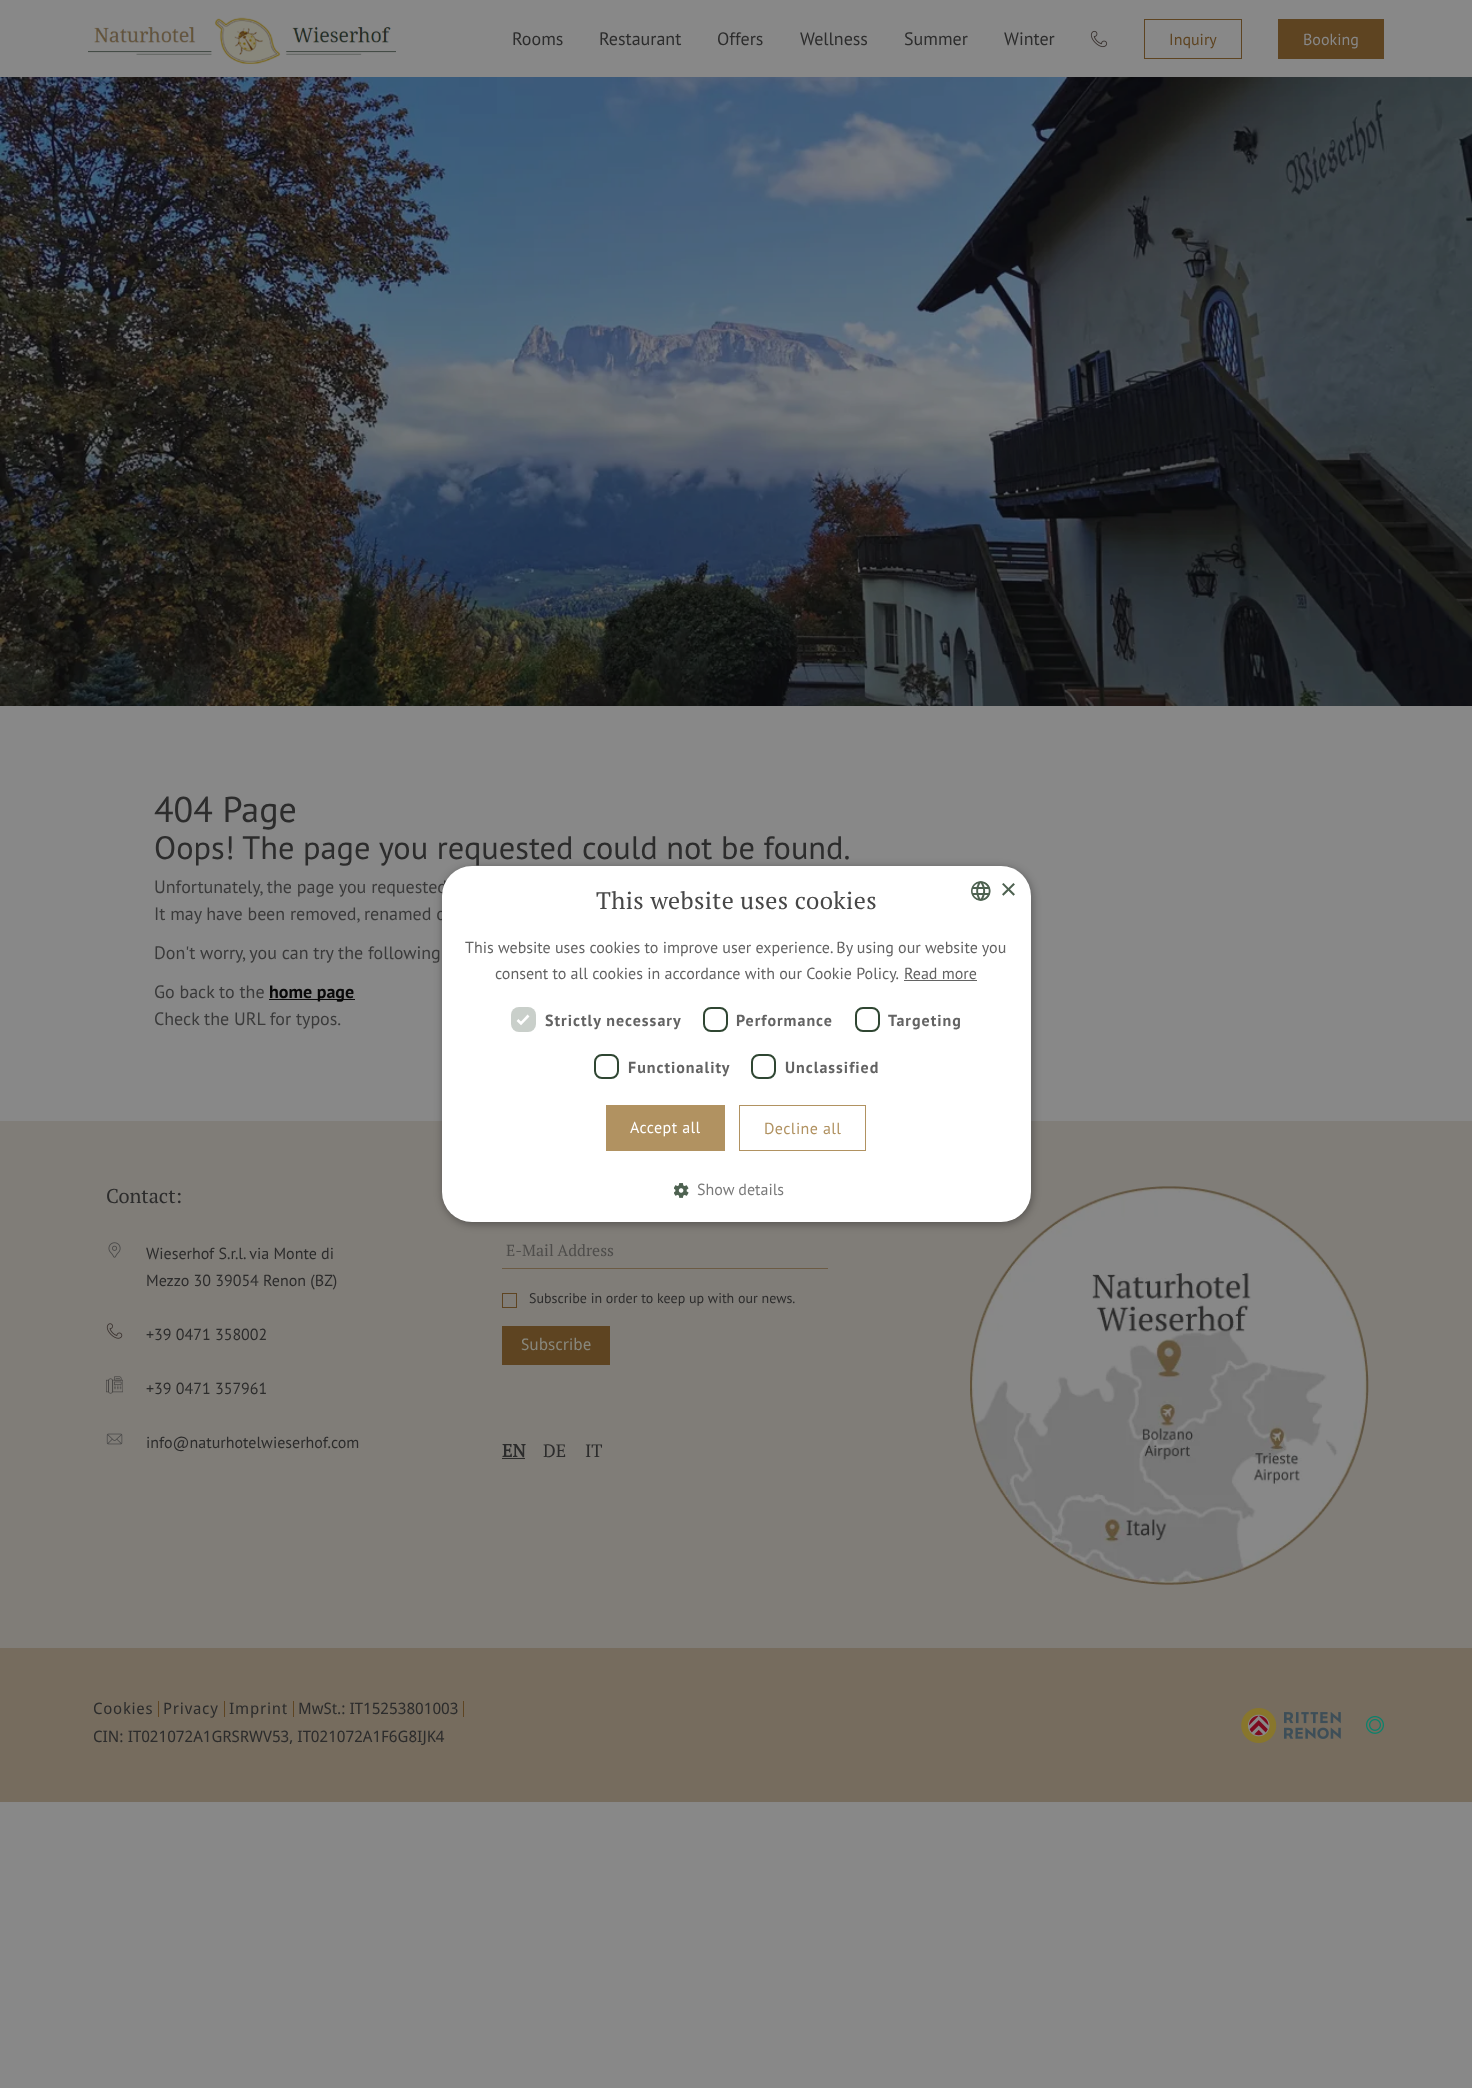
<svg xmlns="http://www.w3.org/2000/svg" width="1472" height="2088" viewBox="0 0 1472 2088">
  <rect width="100%" height="100%" fill="rgb(136,136,136)"/>
  <image x="88" y="17" width="308" height="47" href="pic1.png"/>
  <g font-family="PT Sans" font-size="18" fill="rgb(44,44,44)">
    <text x="512" y="45">Rooms</text>
    <text x="599" y="45">Restaurant</text>
    <text x="717" y="45">Offers</text>
    <text x="800" y="45">Wellness</text>
    <text x="904" y="45">Summer</text>
    <text x="1004" y="45">Winter</text>
  </g>
  <image x="1090" y="30" width="18" height="18" href="pic2.png"/>
  <rect x="1144.5" y="19.5" width="97" height="39" fill="none" stroke="rgb(94,68,33)"/>
  <text x="1169" y="45" font-family="PT Sans" font-size="16" fill="rgb(94,68,33)">Inquiry</text>
  <rect x="1278" y="19" width="106" height="40" fill="rgb(94,68,33)"/>
  <text x="1303" y="45" font-family="PT Sans" font-size="16" fill="rgb(136,136,136)">Booking</text>
  <image x="0" y="77" width="1472" height="629" href="pic3.png"/>
  <text x="154" y="822" font-family="PT Sans" font-size="36" fill="rgb(44,44,44)">404 Page</text>
  <text x="154" y="859" font-family="PT Sans" font-size="32.4" fill="rgb(44,44,44)">Oops! The page you requested could not be found.</text>
  <g font-family="PT Sans" font-size="18" fill="rgb(58,58,58)">
    <text>
      <tspan x="154" y="893">Unfortunately, the page you requested</tspan>
      <tspan x="154" y="920">It may have been removed, renamed o</tspan>
    </text>
    <text x="154" y="959">Don't worry, you can try the following</text>
    <text x="154" y="998">Go back to the</text>
  </g>
  <rect x="269" y="999" width="86" height="1" fill="rgb(9,9,9)"/>
  <text x="269" y="998" font-family="PT Sans" font-size="18" font-weight="bold" fill="rgb(9,9,9)">home page</text>
  <text x="154" y="1025" font-family="PT Sans" font-size="18" fill="rgb(58,58,58)">Check the URL for typos.</text>
  <rect x="0" y="1121" width="1472" height="527" fill="rgb(128,125,120)"/>
  <image x="970" y="1186" width="399" height="399" href="pic10.png"/>
  <rect x="443" y="868" width="589" height="356" rx="30" fill="rgba(0,0,0,0.35)" filter="blur(4px)"/>
  <rect x="442" y="866" width="589" height="356" rx="30" fill="rgb(255,255,255)"/>
  <text x="596" y="909" font-family="PT Serif" font-size="24" letter-spacing="0.4" fill="rgb(71,71,71)">This website uses cookies</text>
  <image x="971" y="881" width="20" height="20" href="pic4.png"/>
  <text x="1000" y="899" font-family="Liberation Sans" font-size="29" fill="rgb(78,98,81)">×</text>
  <g font-family="PT Sans" font-size="16" fill="rgb(99,99,99)">
    <text x="465" y="953">This website uses cookies to improve user experience. By using our website you</text>
    <text x="495" y="979">consent to all cookies in accordance with our Cookie Policy.</text>
    <text x="904" y="979">Read more</text>
  </g>
  <rect x="904" y="980" width="73" height="1" fill="rgb(99,99,99)"/>
  <rect x="511" y="1007" width="25" height="25" rx="8" fill="rgb(201,207,202)"/>
  <path d="M517.5 1020L521 1023.5L528.5 1015.5" fill="none" stroke="rgb(255,255,255)" stroke-width="2.6"/>
  <text x="545" y="1026" font-family="PT Sans" font-size="16" font-weight="bold" letter-spacing="1" fill="rgb(99,99,99)">Strictly necessary</text>
  <rect x="704" y="1008" width="23" height="23" rx="7" fill="none" stroke="rgb(47,70,50)" stroke-width="2"/>
  <text x="736" y="1026" font-family="PT Sans" font-size="16" font-weight="bold" letter-spacing="1" fill="rgb(99,99,99)">Performance</text>
  <rect x="856" y="1008" width="23" height="23" rx="7" fill="none" stroke="rgb(47,70,50)" stroke-width="2"/>
  <text x="888" y="1026" font-family="PT Sans" font-size="16" font-weight="bold" letter-spacing="1" fill="rgb(99,99,99)">Targeting</text>
  <rect x="595" y="1055" width="23" height="23" rx="7" fill="none" stroke="rgb(47,70,50)" stroke-width="2"/>
  <text x="628" y="1073" font-family="PT Sans" font-size="16" font-weight="bold" letter-spacing="1" fill="rgb(99,99,99)">Functionality</text>
  <rect x="752" y="1055" width="23" height="23" rx="7" fill="none" stroke="rgb(47,70,50)" stroke-width="2"/>
  <text x="785" y="1073" font-family="PT Sans" font-size="16" font-weight="bold" letter-spacing="1" fill="rgb(99,99,99)">Unclassified</text>
  <rect x="606" y="1105" width="119" height="46" fill="rgb(177,146,97)"/>
  <text x="630" y="1133" font-family="PT Sans" font-size="16" letter-spacing="0.4" fill="rgb(255,255,255)">Accept all</text>
  <rect x="739.5" y="1105.5" width="126" height="45" fill="none" stroke="rgb(177,146,97)"/>
  <text x="764" y="1134" font-family="PT Sans" font-size="16" letter-spacing="0.4" fill="rgb(177,146,97)">Decline all</text>
  <image x="674" y="1183" width="15" height="15" href="pic5.png"/>
  <text x="697" y="1195" font-family="PT Sans" font-size="16" fill="rgb(122,122,122)">Show details</text>
  <text x="106" y="1203" font-family="PT Serif" font-size="20" fill="rgb(44,44,44)">Contact:</text>
  <image x="108" y="1242" width="13" height="16" href="pic6.png"/>
  <g font-family="PT Sans" font-size="16" fill="rgb(44,44,44)">
    <text>
      <tspan x="146" y="1259">Wieserhof S.r.l. via Monte di</tspan>
      <tspan x="146" y="1286">Mezzo 30 39054 Renon (BZ)</tspan>
    </text>
  </g>
  <image x="106" y="1323" width="17" height="16" href="pic7.png"/>
  <text x="146" y="1340" font-family="PT Sans" font-size="16" fill="rgb(44,44,44)">+39 0471 358002</text>
  <image x="106" y="1376" width="17" height="18" href="pic8.png"/>
  <text x="146" y="1394" font-family="PT Sans" font-size="16" fill="rgb(44,44,44)">+39 0471 357961</text>
  <image x="106" y="1433" width="17" height="12" href="pic9.png"/>
  <text x="146" y="1448" font-family="PT Sans" font-size="16" fill="rgb(44,44,44)">info@naturhotelwieserhof.com</text>
  <rect x="502" y="1268" width="326" height="1" fill="rgb(108,91,68)"/>
  <text x="506" y="1256" font-family="PT Serif" font-size="16" fill="rgb(78,77,75)">E-Mail Address</text>
  <rect x="502.5" y="1293.5" width="14" height="14" fill="none" stroke="rgb(94,68,33)"/>
  <text x="529" y="1303" font-family="PT Sans" font-size="14" fill="rgb(44,44,44)">Subscribe in order to keep up with our news.</text>
  <rect x="502" y="1326" width="108" height="39" fill="rgb(94,68,33)"/>
  <text x="521" y="1350" font-family="Droid Sans" font-size="16" fill="rgb(136,135,124)">Subscribe</text>
  <text x="502" y="1457" font-family="PT Serif" font-size="18" font-weight="bold" fill="rgb(44,44,44)">EN</text>
  <rect x="502" y="1458" width="23" height="1" fill="rgb(44,44,44)"/>
  <g font-family="PT Serif" font-size="18" fill="rgb(44,44,44)">
    <text x="543" y="1457">DE</text>
    <text x="585" y="1457">IT</text>
  </g>
  <rect x="0" y="1648" width="1472" height="154" fill="rgb(118,108,94)"/>
  <rect x="158" y="1701" width="1" height="16" fill="rgb(94,68,33)"/>
  <text x="93" y="1714" font-family="Droid Sans" font-size="15.75" letter-spacing="0.75" fill="rgb(44,44,44)">Cookies</text>
  <rect x="224" y="1701" width="1" height="16" fill="rgb(94,68,33)"/>
  <text x="163" y="1714" font-family="Droid Sans" font-size="15.75" letter-spacing="0.75" fill="rgb(44,44,44)">Privacy</text>
  <rect x="293" y="1701" width="1" height="16" fill="rgb(94,68,33)"/>
  <text x="229" y="1714" font-family="Droid Sans" font-size="15.75" letter-spacing="0.75" fill="rgb(44,44,44)">Imprint</text>
  <rect x="463" y="1701" width="1" height="16" fill="rgb(94,68,33)"/>
  <g font-family="Droid Sans" font-size="15.75" fill="rgb(44,44,44)">
    <text x="298" y="1714">MwSt.: IT15253801003</text>
    <text x="93" y="1742">CIN: IT021072A1GRSRWV53, IT021072A1F6G8IJK4</text>
  </g>
  <image x="1241" y="1708" width="100" height="35" href="pic11.png"/>
  <image x="1366" y="1716" width="18" height="18" href="pic12.png"/>
</svg>
